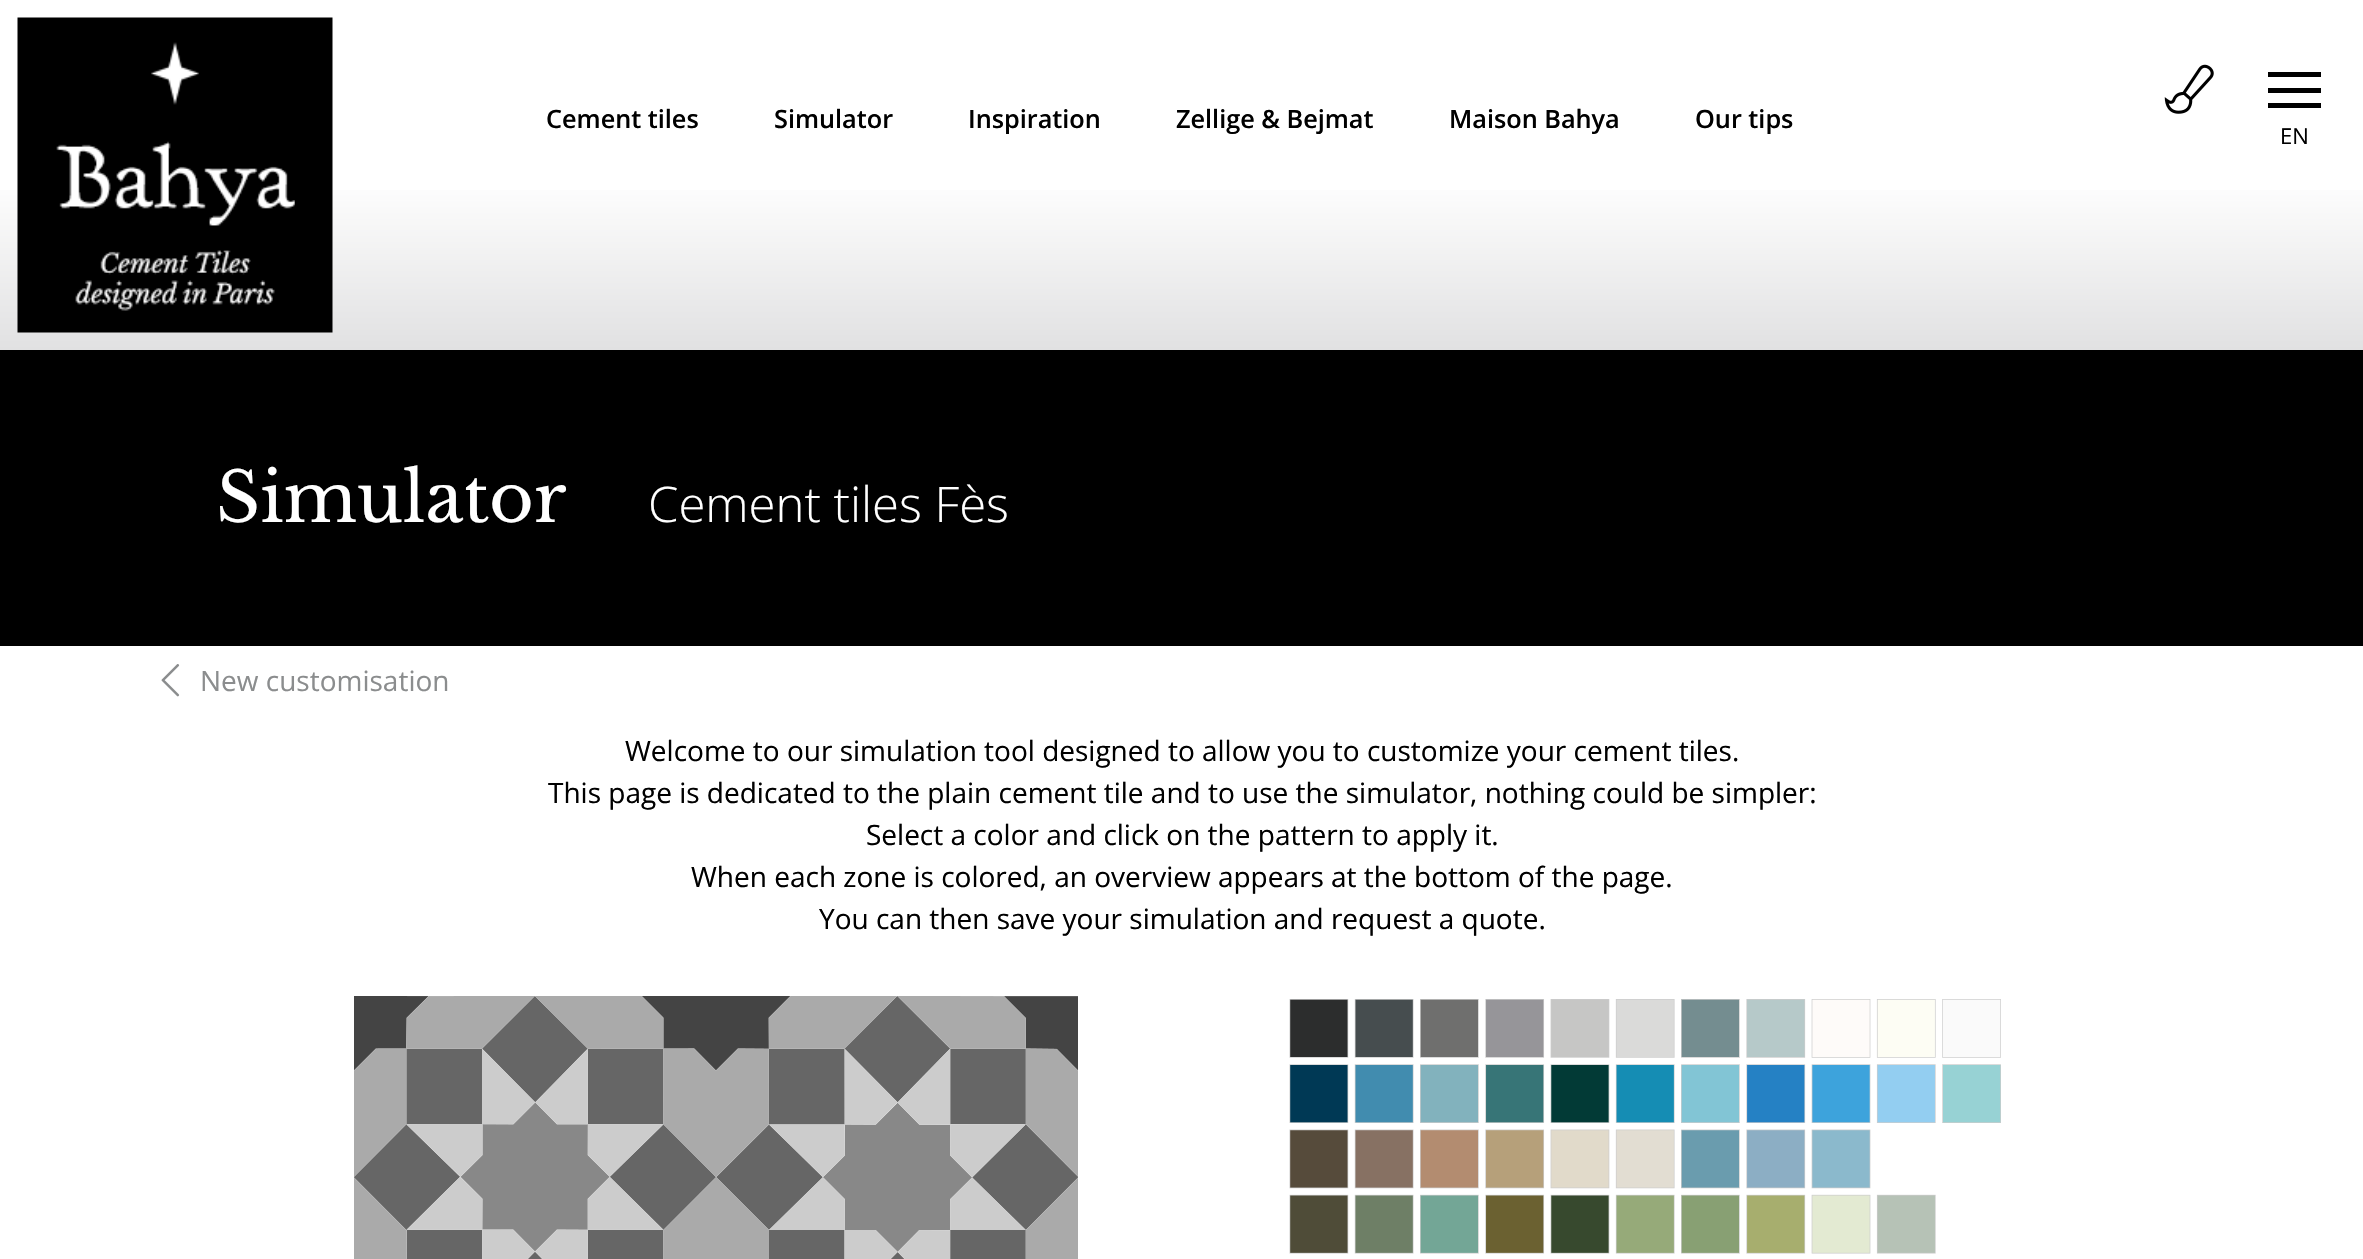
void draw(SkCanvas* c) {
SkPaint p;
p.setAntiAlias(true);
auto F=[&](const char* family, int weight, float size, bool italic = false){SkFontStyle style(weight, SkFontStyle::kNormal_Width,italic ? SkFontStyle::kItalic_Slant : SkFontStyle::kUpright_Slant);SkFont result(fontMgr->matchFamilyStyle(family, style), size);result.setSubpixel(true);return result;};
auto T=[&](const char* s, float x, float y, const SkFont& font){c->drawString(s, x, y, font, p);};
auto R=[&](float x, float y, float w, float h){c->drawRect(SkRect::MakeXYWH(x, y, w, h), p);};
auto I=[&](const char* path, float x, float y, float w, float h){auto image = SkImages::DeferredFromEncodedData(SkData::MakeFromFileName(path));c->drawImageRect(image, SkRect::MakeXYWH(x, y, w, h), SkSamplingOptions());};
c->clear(0xffffffff);
auto f1 = F("Open Sans",600,25.25);
p.setColor(0xff000000);
T("Cement tiles",546,128,f1);
T("Simulator",774,128,f1);
T("Inspiration",968,128,f1);
T("Zellige & Bejmat",1176,128,f1);
T("Maison Bahya",1449,128,f1);
T("Our tips",1695,128,f1);
{
const SkColor colors[] = {0xffffffff,0xffe1e1e2};
const float stops[] = {0,1};
const SkPoint ends[] = {{1182,175}, {1182,350}};
p.setShader(SkGradientShader::MakeLinear(ends, colors, stops, 2, SkTileMode::kClamp));
p.setAlpha(255);
}
R(0,190,2363,160);
I("1.png",17,17,316,316);
I("2.png",2164,64,50,50);
p.setShader(nullptr);
p.setColor(0xff000000);
R(2268,72,53,5);
R(2268,88,53,5);
R(2268,103,53,5);
auto f2 = F("Open Sans",400,22);
T("EN",2280,144,f2);
R(0,350,2363,296);
auto f3 = F("Libre Baskerville",400,68.5);
p.setColor(0xffffffff);
T("Simulator",216,522,f3);
auto f4 = F("Open Sans",300,49);
T("Cement tiles Fès",648,522,f4);
I("3.png",161,664,19,33);
auto f5 = F("Open Sans",400,28);
p.setColor(0xff8b8d8e);
T("New customisation",200,691,f5);
p.setColor(0xff000000);
T("Welcome to our simulation tool designed to allow you to customize your cement tiles.",625,761,f5);
T("This page is dedicated to the plain cement tile and to use the simulator, nothing could be simpler:",548,803,f5);
T("Select a color and click on the pattern to apply it.",866,845,f5);
T("When each zone is colored, an overview appears at the bottom of the page.",691,887,f5);
T("You can then save your simulation and request a quote.",819,929,f5);
I("4.png",354,996,724,263);
I("5.png",1289,999,712,255);
}
